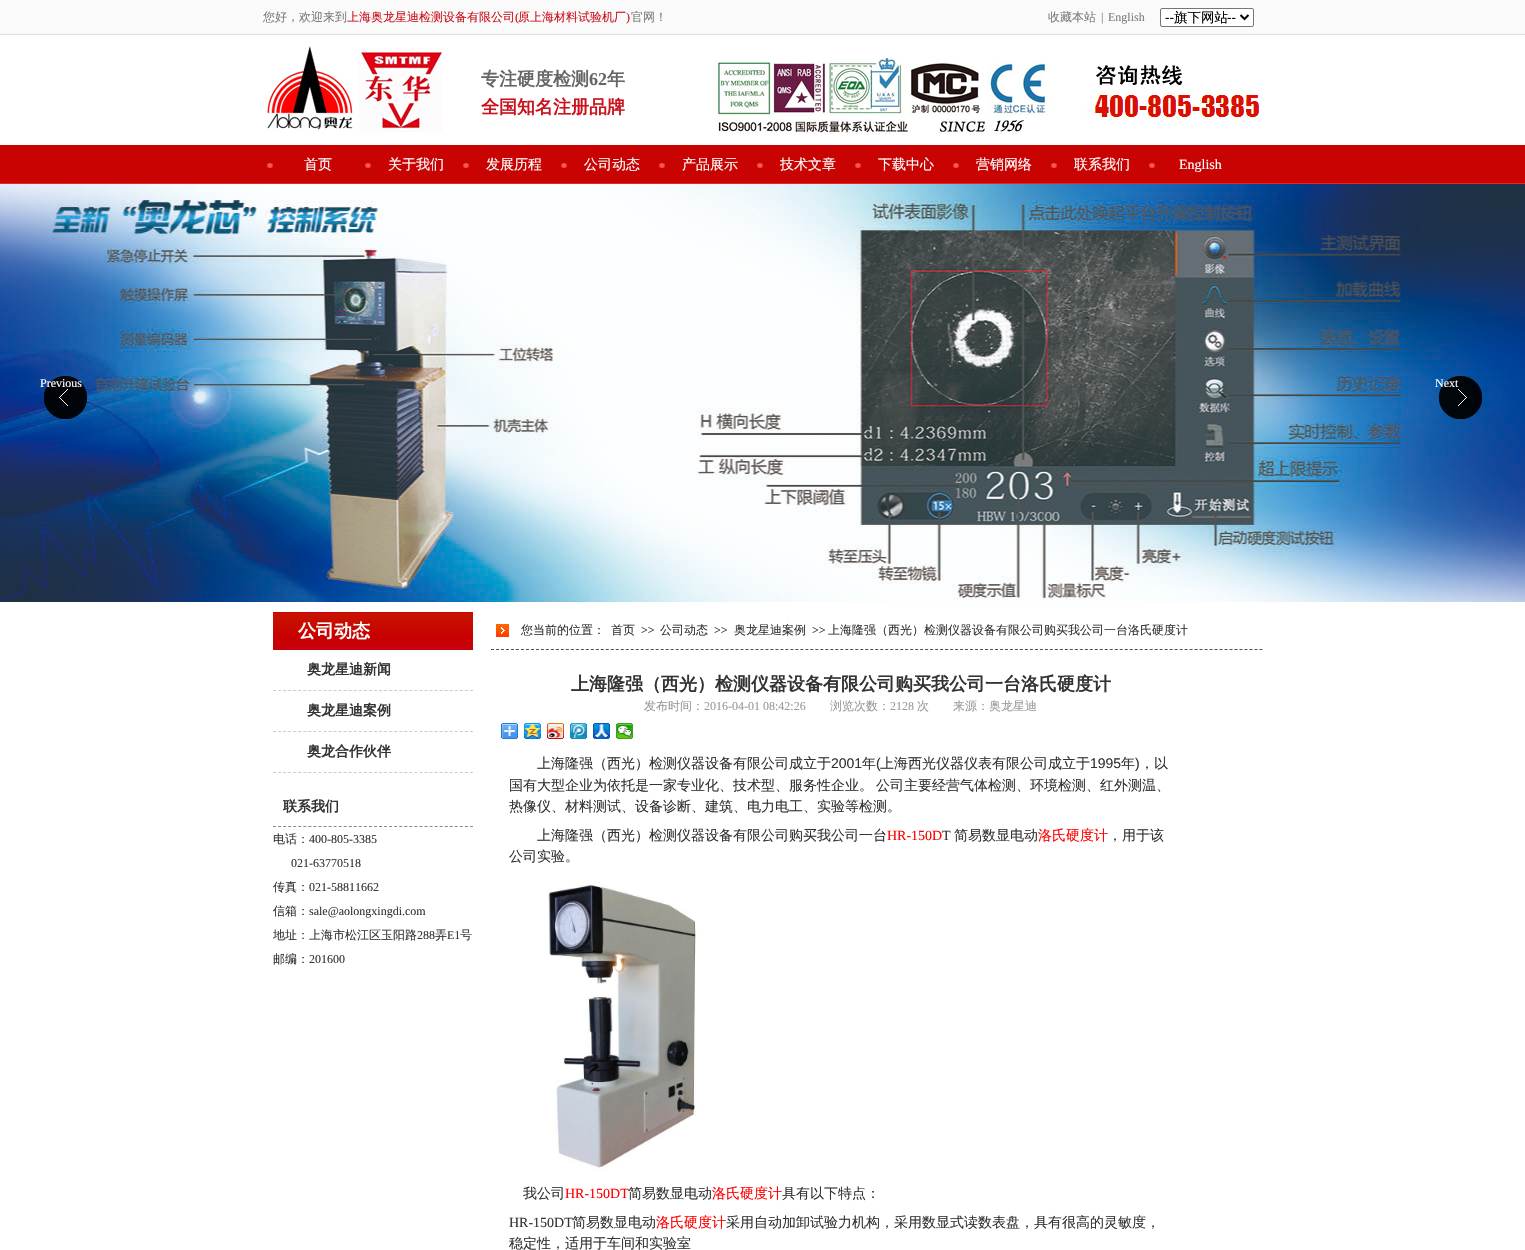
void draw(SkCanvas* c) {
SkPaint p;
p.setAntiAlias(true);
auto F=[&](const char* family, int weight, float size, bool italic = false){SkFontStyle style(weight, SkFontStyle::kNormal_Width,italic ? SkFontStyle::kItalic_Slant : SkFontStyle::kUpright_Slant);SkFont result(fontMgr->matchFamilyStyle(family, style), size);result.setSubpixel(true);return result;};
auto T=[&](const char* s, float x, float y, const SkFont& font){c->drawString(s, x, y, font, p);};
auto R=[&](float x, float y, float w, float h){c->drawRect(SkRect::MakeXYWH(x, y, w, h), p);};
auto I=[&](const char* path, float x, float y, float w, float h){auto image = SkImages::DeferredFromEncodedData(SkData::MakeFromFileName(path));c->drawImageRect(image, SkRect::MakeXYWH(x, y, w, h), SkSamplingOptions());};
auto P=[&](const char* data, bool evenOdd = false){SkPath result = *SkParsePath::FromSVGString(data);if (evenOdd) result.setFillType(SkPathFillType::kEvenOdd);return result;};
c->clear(0xffffffff);
p.setColor(0xfffafafa);
R(0,0,1525,34);
p.setColor(0xffdfdfdf);
R(0,34,1525,1);
auto f1 = F("WenQuanYi Zen Hei",500,12);
p.setColor(0xff7c7c7c);
T("您好，欢迎来到",263,21,f1);
p.setColor(0xffcb131d);
T("上海奥龙星迪检测设备有限公司",347,21,f1);
auto f2 = F("Liberation Serif",400,12);
T("(",515,21,f2);
T("原上海材料试验机厂",518,21,f1);
T(")",626,21,f2);
p.setColor(0xff7c7c7c);
T("官网！",631,21,f1);
T("收藏本站",1048,21,f1);
T("|",1101,21,f2);
T("English",1108,21,f2);
p.setColor(0xffffffff);
c->drawRoundRect(SkRect::MakeXYWH(1160.5,8.5,93,18),1.5,1.5,p);
p.setStroke(true);
p.setStrokeWidth(1);
p.setColor(0xff767676);
c->drawRoundRect(SkRect::MakeXYWH(1160.5,8.5,93,18),1.5,1.5,p);
p.setStrokeWidth(2);
p.setColor(0xff000000);
c->drawPath(P("M1240.5 15l4 4l4-4"),p);
auto f3 = F("Liberation Sans",400,13.5);
p.setStroke(false);
T("--",1165,22,f3);
auto f4 = F("WenQuanYi Zen Hei",500,13.5);
T("旗下网站",1174,22,f4);
T("--",1227,22,f3);
I("1.png",266,46,177,86);
auto f5 = F("WenQuanYi Zen Hei",700,18);
p.setColor(0xff666666);
T("专注硬度检测",481,85,f5);
auto f6 = F("Liberation Serif",700,18);
T("62",589,85,f6);
T("年",607,85,f5);
p.setColor(0xffcb131d);
T("全国知名注册品牌",481,113,f5);
I("2.png",716,57,544,78);
I("3.png",0,145,1525,39);
I("4.png",267,163,6,19);
auto f7 = F("WenQuanYi Zen Hei",500,14);
p.setColor(0xffffffff);
T("首页",304,169,f7);
I("5.png",365,163,6,19);
T("关于我们",388,169,f7);
I("5.png",463,163,6,19);
T("发展历程",486,169,f7);
I("6.png",561,163,7,19);
T("公司动态",584,169,f7);
I("4.png",659,163,6,19);
T("产品展示",682,169,f7);
I("5.png",757,163,6,19);
T("技术文章",780,169,f7);
I("5.png",855,163,6,19);
T("下载中心",878,169,f7);
I("7.png",953,163,7,19);
T("营销网络",976,169,f7);
I("5.png",1051,163,6,19);
T("联系我们",1074,169,f7);
I("5.png",1149,163,6,19);
auto f8 = F("Liberation Serif",400,14);
T("English",1179,169,f8);
I("8.png",0,184,1525,418);
I("9.png",44,376,43,43);
I("10.png",1439,376,43,43);
I("11.png",44,376,43,43);
T("Previous",40,387,f2);
I("12.png",1439,376,43,43);
T("Next",1435,387,f2);
I("13.png",273,612,200,38);
T("公司动态",298,637,f5);
p.setStroke(true);
p.setStrokeWidth(1);
p.setColor(0xffcccccc);
p.setPathEffect(SkDashPathEffect::Make({{3,2.05f}}, 0));
c->drawPath(P("M273 690.5h200"),p);
p.setPathEffect(nullptr);
auto f9 = F("WenQuanYi Zen Hei",700,14);
p.setStroke(false);
p.setColor(0xff333333);
T("奥龙星迪新闻",307,674,f9);
p.setStroke(true);
p.setColor(0xffcccccc);
p.setPathEffect(SkDashPathEffect::Make({{3,2.05f}}, 0));
c->drawPath(P("M273 731.5h200"),p);
p.setPathEffect(nullptr);
p.setStroke(false);
p.setColor(0xff333333);
T("奥龙星迪案例",307,715,f9);
p.setStroke(true);
p.setColor(0xffcccccc);
p.setPathEffect(SkDashPathEffect::Make({{3,2.05f}}, 0));
c->drawPath(P("M273 772.5h200"),p);
p.setPathEffect(nullptr);
p.setStroke(false);
p.setColor(0xff333333);
T("奥龙合作伙伴",307,756,f9);
p.setStroke(true);
p.setColor(0xff888888);
p.setPathEffect(SkDashPathEffect::Make({{3,2.05f}}, 0));
c->drawPath(P("M273 826.5h200"),p);
p.setPathEffect(nullptr);
p.setStroke(false);
p.setColor(0xff333333);
T("联系我们",283,811,f9);
T("电话：",273,843,f1);
T("400-805-3385",309,843,f2);
T("021-63770518",291,867,f2);
T("传真：",273,891,f1);
T("021-58811662",309,891,f2);
T("信箱：",273,915,f1);
T("sale@aolongxingdi.com",309,915,f2);
T("地址：上海市松江区玉阳路",273,939,f1);
T("288",417,939,f2);
T("弄",435,939,f1);
T("E1",447,939,f2);
T("号",460,939,f1);
T("邮编：",273,963,f1);
T("201600",309,963,f2);
I("14.png",496,624,13,13);
p.setStroke(true);
p.setColor(0xff42535a);
p.setPathEffect(SkDashPathEffect::Make({{3,1.99f}}, 0));
c->drawPath(P("M491 649.5h772"),p);
p.setPathEffect(nullptr);
p.setStroke(false);
p.setColor(0xff333333);
T("您当前的位置：",521,634,f1);
T("首页",611,634,f1);
T(">>",641,634,f2);
T("公司动态",660,634,f1);
T(">>",714,634,f2);
T("奥龙星迪案例",734,634,f1);
T(">>",812,634,f2);
T("上海隆强（西光）检测仪器设备有限公司购买我公司一台洛氏硬度计",828,634,f1);
T("上海隆强（西光）检测仪器设备有限公司购买我公司一台洛氏硬度计",571,690,f5);
p.setColor(0xff999999);
T("发布时间：",644,710,f1);
T("2016-04-01 08:42:26",704,710,f2);
T("浏览次数：",830,710,f1);
T("2128",890,710,f2);
T("次　　来源：奥龙星迪",917,710,f1);
I("15.png",501,723,17,16);
I("16.png",524,723,17,16);
I("17.png",547,723,17,16);
I("18.png",570,723,17,16);
I("19.png",593,723,17,16);
I("20.png",616,723,17,16);
p.setColor(0xff333333);
T("上海隆强（西光）检测仪器设备有限公司成立于",537,768,f7);
auto f10 = F("Liberation Sans",400,14);
T("2001",831,768,f10);
T("年",862,768,f7);
T("(",876,768,f10);
T("上海西光仪器仪表有限公司成立于",880,768,f7);
T("1995",1090,768,f10);
T("年",1121,768,f7);
T(")",1135,768,f10);
T("，以",1140,768,f7);
T("国有大型企业为依托是一家专业化、技术型、服务性企业。",509,790,f7);
T("公司主要经营气体检测、环境检测、红外测温、",876,790,f7);
T("热像仪、材料测试、设备诊断、建筑、电力电工、实验等检测。",509,811,f7);
T("上海隆强（西光）检测仪器设备有限公司购买我公司一台",537,840,f7);
p.setColor(0xffff0000);
T("HR-150D",887,840,f8);
p.setColor(0xff333333);
T("T",942,840,f8);
T("简易数显电动",954,840,f7);
p.setColor(0xffff0000);
T("洛氏硬度计",1038,840,f7);
p.setColor(0xff333333);
T("，用于该",1108,840,f7);
T("公司实验。",509,861,f7);
I("21.png",548,884,149,286);
T("我公司",523,1198,f7);
p.setColor(0xffff0000);
T("HR-150DT",565,1198,f8);
p.setColor(0xff333333);
T("简易数显电动",628,1198,f7);
p.setColor(0xffff0000);
T("洛氏硬度计",712,1198,f7);
p.setColor(0xff333333);
T("具有以下特点：",782,1198,f7);
T("HR-150DT",509,1227,f8);
T("简易数显电动",572,1227,f7);
p.setColor(0xffff0000);
T("洛氏硬度计",656,1227,f7);
p.setColor(0xff333333);
T("采用自动加卸试验力机构，采用数显式读数表盘，具有很高的灵敏度，",726,1227,f7);
T("稳定性，适用于车间和实验室",509,1248,f7);
}
